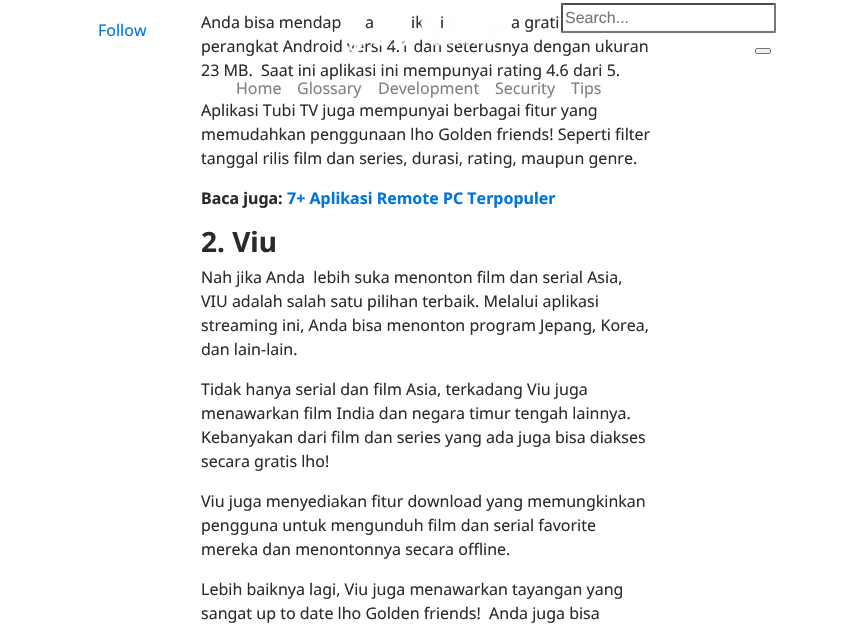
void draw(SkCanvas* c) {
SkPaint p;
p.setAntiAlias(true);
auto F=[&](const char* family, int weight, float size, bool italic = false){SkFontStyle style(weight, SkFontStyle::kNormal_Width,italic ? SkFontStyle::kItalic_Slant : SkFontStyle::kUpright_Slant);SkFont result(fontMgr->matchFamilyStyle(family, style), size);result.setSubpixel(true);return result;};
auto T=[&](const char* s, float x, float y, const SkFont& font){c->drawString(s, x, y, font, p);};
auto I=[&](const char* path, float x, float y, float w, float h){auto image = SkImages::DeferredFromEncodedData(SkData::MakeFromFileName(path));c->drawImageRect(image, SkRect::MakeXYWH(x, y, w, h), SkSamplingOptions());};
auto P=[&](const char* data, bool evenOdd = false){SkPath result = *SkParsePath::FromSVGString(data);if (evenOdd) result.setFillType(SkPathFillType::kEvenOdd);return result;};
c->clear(0xffffffff);
auto f1 = F("Noto Sans",400,16);
p.setColor(0xff0275d8);
T("Follow",98,36,f1);
p.setColor(0xff292b2c);
T("a",365,28,f1);
T("ik",411,28,f1);
T("i",440,28,f1);
T("perangkat Android versi 4.1 dan seterusnya dengan ukuran",201,52,f1);
I("1.png",346,16,162,36);
p.setColor(0xff4f4f4f);
c->drawPath(P("M561 3h215l-2 2h-211z"),p);
p.setColor(0xff767676);
c->drawPath(P("M776 3v30l-2-2v-26z"),p);
c->drawPath(P("M776 33h-215l2-2h211z"),p);
p.setColor(0xff4f4f4f);
c->drawPath(P("M561 33v-30l2 2v26z"),p);
auto f2 = F("Liberation Sans",400,16);
p.setColor(0xff757575);
T("Search...",565,23,f2);
p.setColor(0xffefefef);
c->drawRoundRect(SkRect::MakeXYWH(755.5,48.5,15,5),1.5,1.5,p);
p.setStroke(true);
p.setStrokeWidth(1);
p.setColor(0xff767676);
c->drawRoundRect(SkRect::MakeXYWH(755.5,48.5,15,5),1.5,1.5,p);
p.setStroke(false);
p.setColor(0xff808080);
T("Home",236,94,f1);
T("Glossary",297,94,f1);
T("Development",378,94,f1);
T("Security",495,94,f1);
T("Tips",571,94,f1);
p.setColor(0xff292b2c);
T("Anda bisa mendap",201,28,f1);
T("a grati",511,28,f1);
T("23 MB.  Saat ini aplikasi ini mempunyai rating 4.6 dari 5.",201,76,f1);
T("Aplikasi Tubi TV juga mempunyai berbagai fitur yang",201,116,f1);
T("memudahkan penggunaan lho Golden friends! Seperti filter",201,140,f1);
T("tanggal rilis film dan series, durasi, rating, maupun genre.",201,164,f1);
auto f3 = F("Noto Sans",700,16);
T("Baca juga:",201,204,f3);
p.setColor(0xff0275d8);
T("7+ Aplikasi Remote PC Terpopuler",287,204,f3);
auto f4 = F("Noto Sans",700,28);
p.setColor(0xff292b2c);
T("2. Viu",201,252,f4);
T("Nah jika Anda  lebih suka menonton film dan serial Asia,",201,283,f1);
T("VIU adalah salah satu pilihan terbaik. Melalui aplikasi",201,307,f1);
T("streaming ini, Anda bisa menonton program Jepang, Korea,",201,331,f1);
T("dan lain-lain.",201,355,f1);
T("Tidak hanya serial dan film Asia, terkadang Viu juga",201,395,f1);
T("menawarkan film India dan negara timur tengah lainnya.",201,419,f1);
T("Kebanyakan dari film dan series yang ada juga bisa diakses",201,443,f1);
T("secara gratis lho!",201,467,f1);
T("Viu juga menyediakan fitur download yang memungkinkan",201,507,f1);
T("pengguna untuk mengunduh film dan serial favorite",201,531,f1);
T("mereka dan menontonnya secara offline.",201,555,f1);
T("Lebih baiknya lagi, Viu juga menawarkan tayangan yang",201,595,f1);
T("sangat up to date lho Golden friends!  Anda juga bisa",201,619,f1);
}
